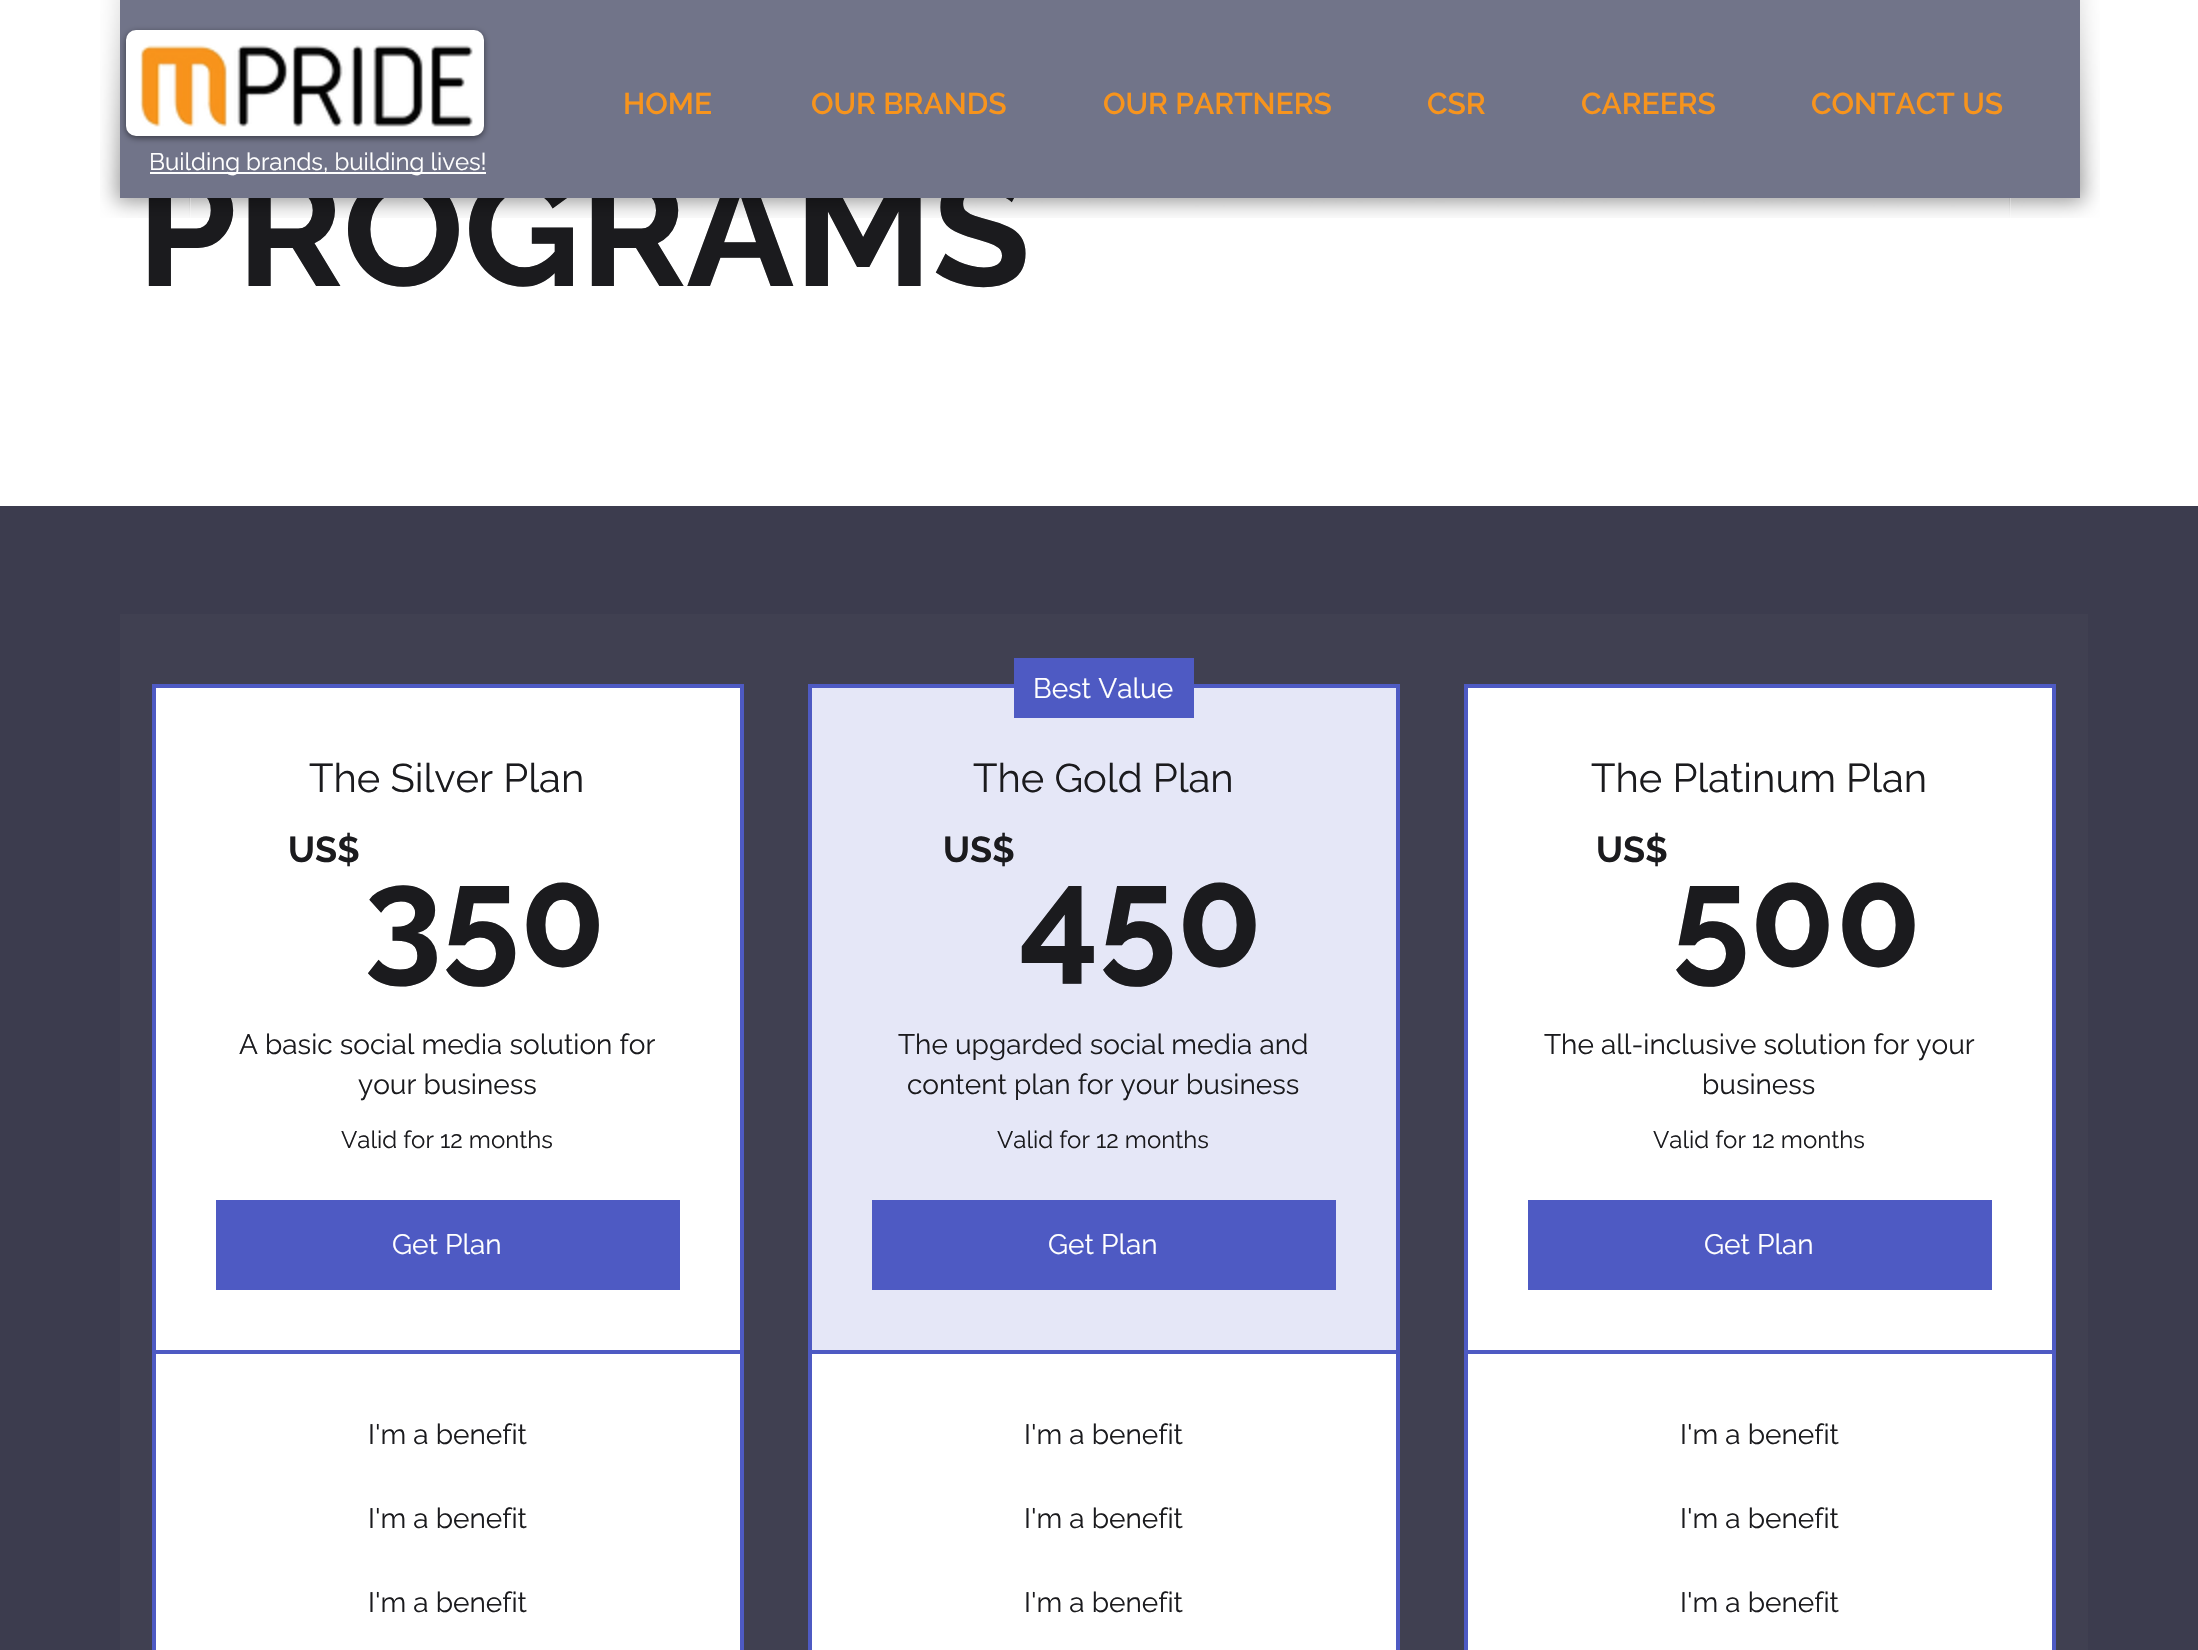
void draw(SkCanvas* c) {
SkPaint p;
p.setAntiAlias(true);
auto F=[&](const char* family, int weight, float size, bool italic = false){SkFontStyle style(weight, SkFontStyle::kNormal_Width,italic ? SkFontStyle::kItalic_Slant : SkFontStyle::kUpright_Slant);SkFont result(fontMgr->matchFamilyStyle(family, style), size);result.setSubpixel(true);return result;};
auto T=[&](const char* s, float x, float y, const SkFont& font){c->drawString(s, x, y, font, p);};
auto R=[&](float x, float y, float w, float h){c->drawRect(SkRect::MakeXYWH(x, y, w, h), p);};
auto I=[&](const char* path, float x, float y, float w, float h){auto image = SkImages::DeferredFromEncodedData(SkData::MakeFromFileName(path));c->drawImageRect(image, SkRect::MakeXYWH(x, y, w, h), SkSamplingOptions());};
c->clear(0xff3c3c4e);
p.setColor(0xffffffff);
R(0,0,2198,506);
auto f1 = F("Raleway",700,160);
p.setColor(0xff1b1b1e);
T("PROGRAMS",137,286,f1);
I("1.png",100,0,90,218);
I("2.png",189,198,1821,20);
I("3.png",2009,0,91,218);
p.setColor(0xff717489);
R(120,0,1960,198);
auto f2 = F("Raleway",600,30);
p.setColor(0xfff7941d);
T("HOME",623,114,f2);
T("OUR BRANDS",811,114,f2);
T("OUR PARTNERS",1103,114,f2);
T("CSR",1427,114,f2);
T("CAREERS",1581,114,f2);
T("CONTACT US",1811,114,f2);
p.setColor(0x80000000);
p.setMaskFilter(SkMaskFilter::MakeBlur(kNormal_SkBlurStyle, 3));
c->drawRoundRect(SkRect::MakeXYWH(126,32,358,106),10,10,p);
p.setMaskFilter(nullptr);
p.setColor(0xffffffff);
c->drawRoundRect(SkRect::MakeXYWH(128,32,354,102),8,8,p);
p.setStroke(true);
p.setStrokeWidth(4);
c->drawRoundRect(SkRect::MakeXYWH(128,32,354,102),8,8,p);
I("4.png",140,45,333,82);
p.setStroke(false);
R(150,172,336,2);
auto f3 = F("Raleway",400,24);
T("Building brands, building lives!",149,170,f3);
p.setColor(0xff404051);
R(120,614,1968,1036);
p.setStroke(true);
p.setColor(0xff4e5ac3);
c->drawRect(SkRect::MakeXYWH(154,686,588,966),p);
p.setStroke(false);
p.setColor(0xffffffff);
R(156,688,584,662);
auto f4 = F("Raleway",400,40);
p.setColor(0xff1b1b1e);
T("The Silver Plan",309,792,f4);
auto f5 = F("Raleway",700,36);
T("US$",288,862,f5);
auto f6 = F("Raleway",700,140);
T("350",364,966,f6);
auto f7 = F("Raleway",400,28);
T("A basic social media solution for",239,1054,f7);
T("your business",358,1094,f7);
T("Valid for 12 months",341,1148,f3);
p.setColor(0xff4e5ac3);
R(216,1200,464,90);
p.setColor(0xffffffff);
T("Get Plan",392,1254,f7);
R(156,1354,584,296);
p.setColor(0xff4e5ac3);
R(156,1350,584,4);
p.setColor(0xff1b1b1e);
T("I'm a benefit",368,1444,f7);
T("I'm a benefit",368,1528,f7);
T("I'm a benefit",368,1612,f7);
p.setStroke(true);
p.setColor(0xff4e5ac3);
c->drawRect(SkRect::MakeXYWH(810,686,588,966),p);
p.setStroke(false);
p.setColor(0xffe5e7f7);
R(812,688,584,662);
p.setColor(0xff4e5ac3);
R(1014,658,180,60);
p.setColor(0xffffffff);
T("Best Value",1033,698,f7);
p.setColor(0xff1b1b1e);
T("The Gold Plan",973,792,f4);
T("US$",943,862,f5);
T("450",1019,966,f6);
T("The upgarded social media and",898,1054,f7);
T("content plan for your business",907,1094,f7);
T("Valid for 12 months",997,1148,f3);
p.setColor(0xff4e5ac3);
R(872,1200,464,90);
p.setColor(0xffffffff);
T("Get Plan",1048,1254,f7);
R(812,1354,584,296);
p.setColor(0xff4e5ac3);
R(812,1350,584,4);
p.setColor(0xff1b1b1e);
T("I'm a benefit",1024,1444,f7);
T("I'm a benefit",1024,1528,f7);
T("I'm a benefit",1024,1612,f7);
p.setStroke(true);
p.setColor(0xff4e5ac3);
c->drawRect(SkRect::MakeXYWH(1466,686,588,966),p);
p.setStroke(false);
p.setColor(0xffffffff);
R(1468,688,584,662);
p.setColor(0xff1b1b1e);
T("The Platinum Plan",1591,792,f4);
T("US$",1596,862,f5);
T("500",1672,966,f6);
T("The all-inclusive solution for your",1544,1054,f7);
T("business",1702,1094,f7);
T("Valid for 12 months",1653,1148,f3);
p.setColor(0xff4e5ac3);
R(1528,1200,464,90);
p.setColor(0xffffffff);
T("Get Plan",1704,1254,f7);
R(1468,1354,584,296);
p.setColor(0xff4e5ac3);
R(1468,1350,584,4);
p.setColor(0xff1b1b1e);
T("I'm a benefit",1680,1444,f7);
T("I'm a benefit",1680,1528,f7);
T("I'm a benefit",1680,1612,f7);
}
